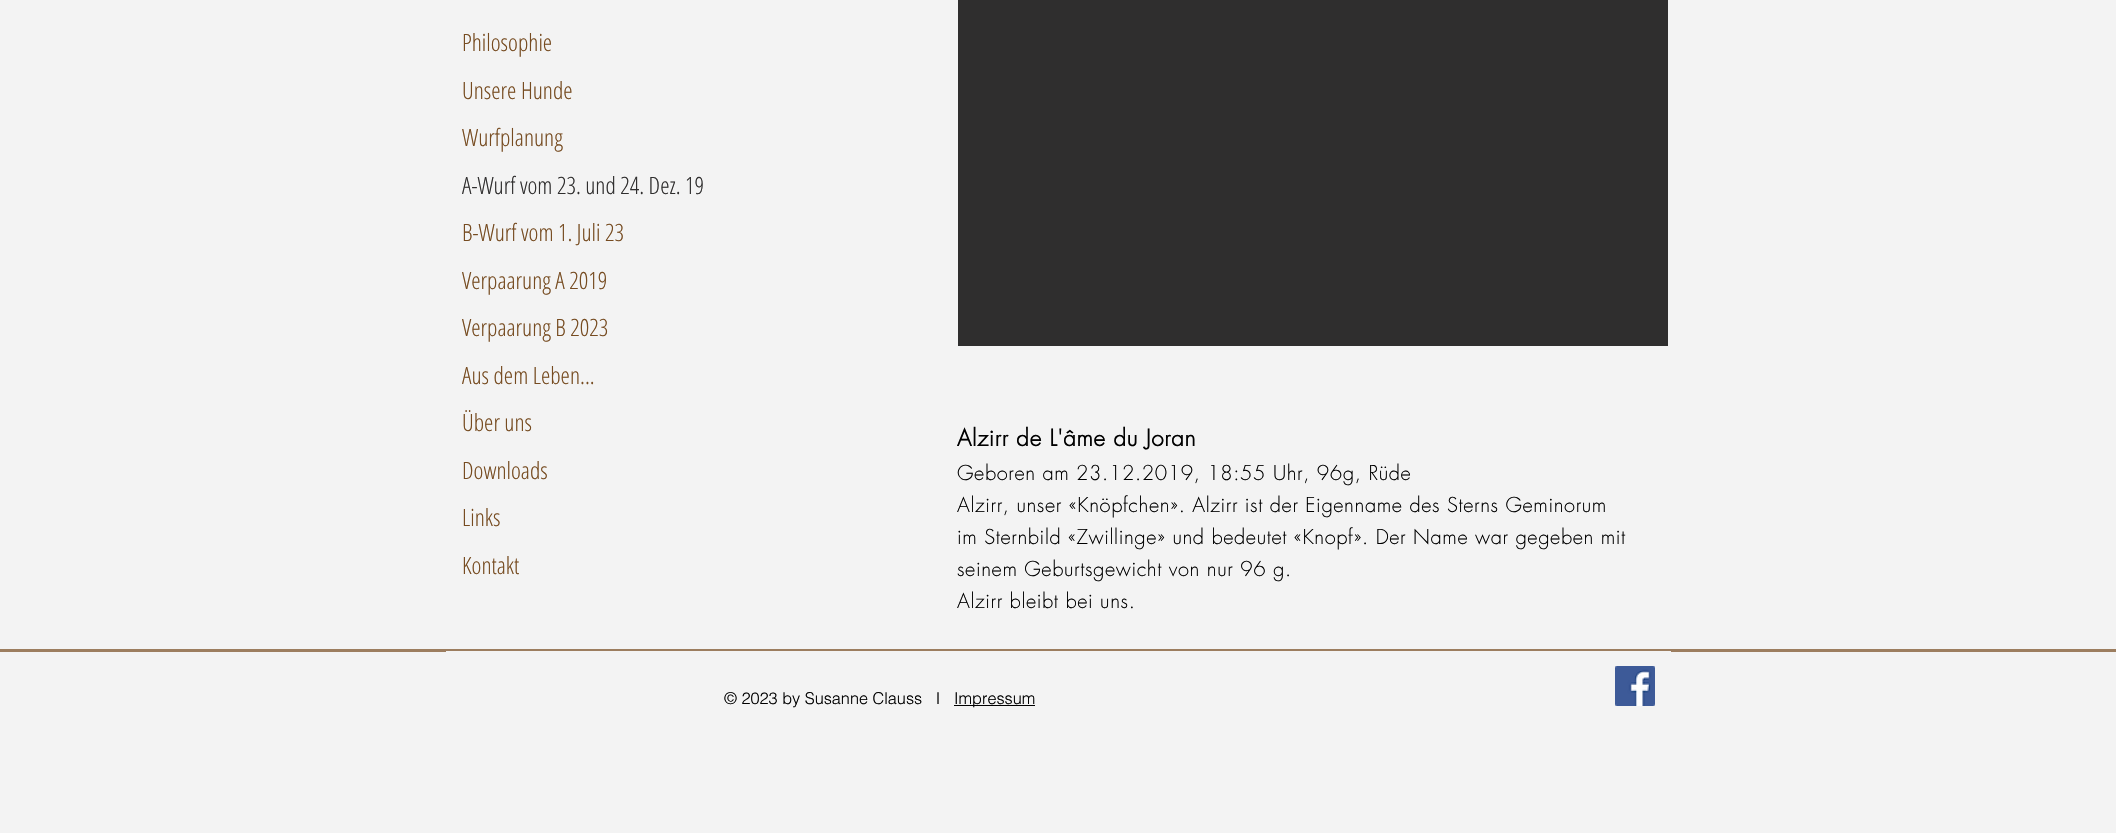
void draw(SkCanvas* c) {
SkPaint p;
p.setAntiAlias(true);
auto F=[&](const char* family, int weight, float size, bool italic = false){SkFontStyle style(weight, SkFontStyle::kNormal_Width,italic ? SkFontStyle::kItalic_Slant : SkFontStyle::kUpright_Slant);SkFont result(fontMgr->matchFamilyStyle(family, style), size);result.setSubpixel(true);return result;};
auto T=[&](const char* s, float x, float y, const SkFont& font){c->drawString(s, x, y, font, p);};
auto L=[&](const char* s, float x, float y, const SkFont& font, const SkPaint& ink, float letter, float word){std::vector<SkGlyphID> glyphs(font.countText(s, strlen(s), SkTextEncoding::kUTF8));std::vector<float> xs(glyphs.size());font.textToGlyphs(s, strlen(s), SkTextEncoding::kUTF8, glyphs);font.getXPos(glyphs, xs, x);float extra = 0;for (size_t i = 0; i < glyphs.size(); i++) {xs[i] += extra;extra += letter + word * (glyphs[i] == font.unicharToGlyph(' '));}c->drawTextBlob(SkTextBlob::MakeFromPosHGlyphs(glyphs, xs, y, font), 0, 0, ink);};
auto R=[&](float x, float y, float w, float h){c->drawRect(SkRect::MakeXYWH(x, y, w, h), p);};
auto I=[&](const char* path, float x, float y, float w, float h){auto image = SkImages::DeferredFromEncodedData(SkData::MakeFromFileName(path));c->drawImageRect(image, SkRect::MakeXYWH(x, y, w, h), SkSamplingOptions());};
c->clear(0xfff3f3f3);
auto f1 = F("Open Sans Condensed",300,23.75);
p.setColor(0xff764b20);
T("Philosophie",462,51,f1);
T("Unsere Hunde",462,99,f1);
T("Wurfplanung",462,146,f1);
p.setColor(0xff2f2e2e);
T("A-Wurf vom 23. und 24. Dez. 19",462,194,f1);
p.setColor(0xff764b20);
T("B-Wurf vom 1. Juli 23",462,241,f1);
T("Verpaarung A 2019",462,289,f1);
T("Verpaarung B 2023",462,336,f1);
T("Aus dem Leben...",462,384,f1);
T("Über uns",462,431,f1);
T("Downloads",462,479,f1);
T("Links",462,526,f1);
T("Kontakt",462,574,f1);
p.setColor(0xff2f2e2e);
R(958,0,710,346);
auto f2 = F("futura",700,22.5);
p.setColor(0xff000000);
L("Alzirr de L'âme du Joran",957,446,f2,p,.7,0);
auto f3 = F("futura",300,20);
L("Geboren am 23.12.2019, 18:55 Uhr, 96g, Rüde",957,480,f3,p,.6,0);
L("Alzirr, unser «Knöpfchen». Alzirr ist der Eigenname des Sterns Geminorum",957,512,f3,p,.6,0);
L("im Sternbild «Zwillinge» und bedeutet «Knopf». Der Name war gegeben mit",957,544,f3,p,.6,0);
L("seinem Geburtsgewicht von nur 96 g.",957,576,f3,p,.6,0);
L("Alzirr bleibt bei uns.",957,608,f3,p,.6,0);
p.setColor(0xff9c7d5f);
R(0,649,2116,3);
p.setColor(0xfff3f3f3);
R(446,651,1225,1);
auto f4 = F("helvetica",300,16.25);
p.setColor(0xff000000);
T("© 2023 by Susanne Clauss   I",724,704,f4);
R(954,705,81,1);
T("Impressum",954,704,f4);
I("1.png",1615,666,40,40);
}
